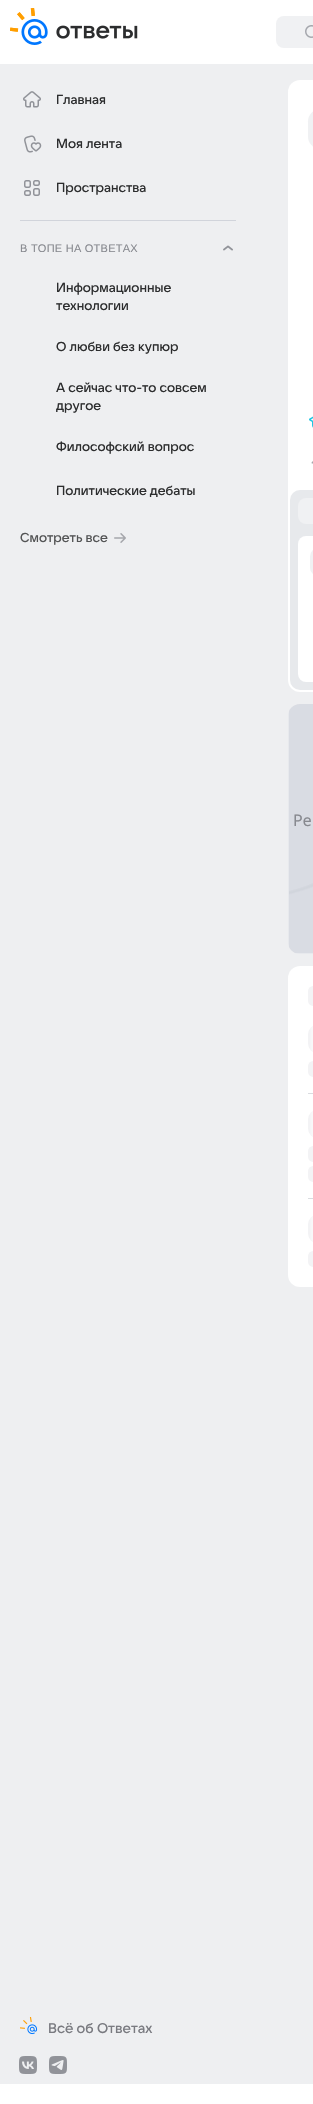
void draw(SkCanvas* c) {
SkPaint p;
p.setAntiAlias(true);
auto F=[&](const char* family, int weight, float size, bool italic = false){SkFontStyle style(weight, SkFontStyle::kNormal_Width,italic ? SkFontStyle::kItalic_Slant : SkFontStyle::kUpright_Slant);SkFont result(fontMgr->matchFamilyStyle(family, style), size);result.setSubpixel(true);return result;};
auto T=[&](const char* s, float x, float y, const SkFont& font){c->drawString(s, x, y, font, p);};
auto L=[&](const char* s, float x, float y, const SkFont& font, const SkPaint& ink, float letter, float word){std::vector<SkGlyphID> glyphs(font.countText(s, strlen(s), SkTextEncoding::kUTF8));std::vector<float> xs(glyphs.size());font.textToGlyphs(s, strlen(s), SkTextEncoding::kUTF8, glyphs);font.getXPos(glyphs, xs, x);float extra = 0;for (size_t i = 0; i < glyphs.size(); i++) {xs[i] += extra;extra += letter + word * (glyphs[i] == font.unicharToGlyph(' '));}c->drawTextBlob(SkTextBlob::MakeFromPosHGlyphs(glyphs, xs, y, font), 0, 0, ink);};
auto R=[&](float x, float y, float w, float h){c->drawRect(SkRect::MakeXYWH(x, y, w, h), p);};
auto Q=[&](float x, float y, float w, float h, float radius){c->drawRoundRect(SkRect::MakeXYWH(x, y, w, h), radius, radius, p);};
auto I=[&](const char* path, float x, float y, float w, float h){auto image = SkImages::DeferredFromEncodedData(SkData::MakeFromFileName(path));c->drawImageRect(image, SkRect::MakeXYWH(x, y, w, h), SkSamplingOptions());};
c->clear(0xffffffff);
p.setColor(0xffeeeff1);
R(0,64,313,2020);
I("1.png",10,8,128,37);
p.setColor(0xfff0f1f3);
Q(276,16,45,32,8);
I("2.png",305,25,8,13);
I("3.png",23,91,18,17);
auto f1 = F("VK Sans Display",500,13);
p.setColor(0xff2c2d2e);
T("Главная",56,104,f1);
I("4.png",24,135,18,18);
T("Моя лента",56,148,f1);
I("5.png",24,180,16,16);
T("Пространства",56,192,f1);
p.setColor(0xffd1d4db);
R(20,220,216,1);
auto f2 = F("Liberation Sans",400,11);
p.setColor(0xff87898f);
L("В ТОПЕ НА ОТВЕТАХ",20,252,f2,p,.25,0);
I("6.png",223,245,10,6);
p.setColor(0xff2c2d2e);
T("Информационные",56,292,f1);
T("технологии",56,310,f1);
T("О любви без купюр",56,351,f1);
T("А сейчас что-то совсем",56,392,f1);
T("другое",56,410,f1);
T("Философский вопрос",56,451,f1);
T("Политические дебаты",56,495,f1);
p.setColor(0xff535455);
T("Смотреть все",20,542,f1);
I("7.png",114,533,12,10);
I("8.png",20,2017,18,18);
auto f3 = F("VK Sans Display",500,14);
p.setColor(0xff797a80);
T("Всё об Ответах",48,2033,f3);
I("9.png",19,2056,18,18);
I("10.png",49,2056,18,18);
p.setColor(0xffffffff);
Q(288,80,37,612,12);
p.setColor(0xfff0f1f3);
Q(308,109,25,40,20);
I("11.png",309,416,4,12);
I("12.png",311,461,2,3);
p.setColor(0xffe7e9ec);
Q(290,490,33,200,10);
p.setColor(0xfff0f1f3);
Q(298,498,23,26,8);
p.setColor(0xffffffff);
Q(298,536,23,146,8);
p.setColor(0xfff0f1f3);
Q(310,548,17,28,14);
p.setColor(0xffe7e9ed);
Q(288,704,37,250,12);
I("13.png",289,704,24,249);
auto f4 = F("Noto Sans",400,16);
p.setColor(0xff87898f);
T("Ре",293,826,f4);
p.setColor(0xffffffff);
Q(288,966,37,321,12);
{
const SkColor colors[] = {0xfff3f3f5,0xffffffff,0xfff3f3f5};
const float stops[] = {.05,.3,.55};
const SkPoint ends[] = {{308,996}, {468,996}};
p.setShader(SkGradientShader::MakeLinear(ends, colors, stops, 3, SkTileMode::kClamp));
p.setAlpha(255);
}
Q(308,986,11,20,6);
p.setShader(nullptr);
p.setColor(0xfff3f3f5);
Q(308,1025,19,28,14);
{
const SkColor colors[] = {0x00ffffff,0xffffffff,0x00ffffff};
const float stops[] = {.05,.3,.55};
const SkPoint ends[] = {{308,1039}, {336,1039}};
p.setShader(SkGradientShader::MakeLinear(ends, colors, stops, 3, SkTileMode::kClamp));
p.setAlpha(255);
}
Q(308,1025,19,28,14);
{
const SkColor colors[] = {0xfff3f3f5,0xffffffff,0xfff3f3f5};
const float stops[] = {.05,.3,.55};
const SkPoint ends[] = {{308,1069}, {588,1069}};
p.setShader(SkGradientShader::MakeLinear(ends, colors, stops, 3, SkTileMode::kClamp));
p.setAlpha(255);
}
Q(308,1061,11,16,6);
p.setShader(nullptr);
p.setColor(0xffdadce0);
R(308,1093,5,1);
p.setColor(0xfff3f3f5);
Q(308,1110,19,28,14);
{
const SkColor colors[] = {0x00ffffff,0xffffffff,0x00ffffff};
const float stops[] = {.05,.3,.55};
const SkPoint ends[] = {{308,1124}, {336,1124}};
p.setShader(SkGradientShader::MakeLinear(ends, colors, stops, 3, SkTileMode::kClamp));
p.setAlpha(255);
}
Q(308,1110,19,28,14);
{
const SkColor colors[] = {0xfff3f3f5,0xffffffff,0xfff3f3f5};
const float stops[] = {.05,.3,.55};
const SkPoint ends[] = {{308,1154}, {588,1154}};
p.setShader(SkGradientShader::MakeLinear(ends, colors, stops, 3, SkTileMode::kClamp));
p.setAlpha(255);
}
Q(308,1146,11,16,6);
{
const SkColor colors[] = {0xfff3f3f5,0xffffffff,0xfff3f3f5};
const float stops[] = {.05,.3,.55};
const SkPoint ends[] = {{308,1174}, {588,1174}};
p.setShader(SkGradientShader::MakeLinear(ends, colors, stops, 3, SkTileMode::kClamp));
p.setAlpha(255);
}
Q(308,1166,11,16,6);
p.setShader(nullptr);
p.setColor(0xffdadce0);
R(308,1198,5,1);
p.setColor(0xfff3f3f5);
Q(308,1215,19,28,14);
{
const SkColor colors[] = {0x00ffffff,0xffffffff,0x00ffffff};
const float stops[] = {.05,.3,.55};
const SkPoint ends[] = {{308,1229}, {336,1229}};
p.setShader(SkGradientShader::MakeLinear(ends, colors, stops, 3, SkTileMode::kClamp));
p.setAlpha(255);
}
Q(308,1215,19,28,14);
{
const SkColor colors[] = {0xfff3f3f5,0xffffffff,0xfff3f3f5};
const float stops[] = {.05,.3,.55};
const SkPoint ends[] = {{308,1259}, {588,1259}};
p.setShader(SkGradientShader::MakeLinear(ends, colors, stops, 3, SkTileMode::kClamp));
p.setAlpha(255);
}
Q(308,1251,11,16,6);
}
